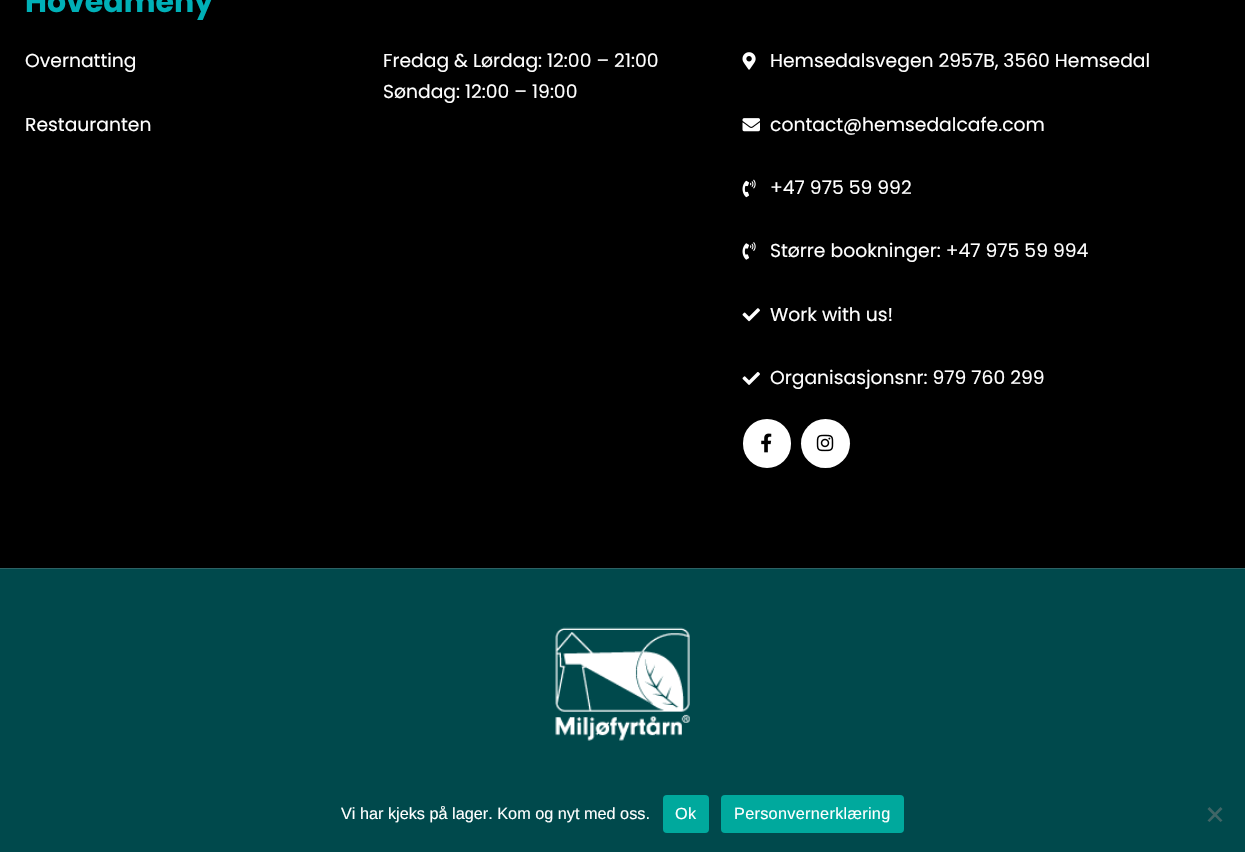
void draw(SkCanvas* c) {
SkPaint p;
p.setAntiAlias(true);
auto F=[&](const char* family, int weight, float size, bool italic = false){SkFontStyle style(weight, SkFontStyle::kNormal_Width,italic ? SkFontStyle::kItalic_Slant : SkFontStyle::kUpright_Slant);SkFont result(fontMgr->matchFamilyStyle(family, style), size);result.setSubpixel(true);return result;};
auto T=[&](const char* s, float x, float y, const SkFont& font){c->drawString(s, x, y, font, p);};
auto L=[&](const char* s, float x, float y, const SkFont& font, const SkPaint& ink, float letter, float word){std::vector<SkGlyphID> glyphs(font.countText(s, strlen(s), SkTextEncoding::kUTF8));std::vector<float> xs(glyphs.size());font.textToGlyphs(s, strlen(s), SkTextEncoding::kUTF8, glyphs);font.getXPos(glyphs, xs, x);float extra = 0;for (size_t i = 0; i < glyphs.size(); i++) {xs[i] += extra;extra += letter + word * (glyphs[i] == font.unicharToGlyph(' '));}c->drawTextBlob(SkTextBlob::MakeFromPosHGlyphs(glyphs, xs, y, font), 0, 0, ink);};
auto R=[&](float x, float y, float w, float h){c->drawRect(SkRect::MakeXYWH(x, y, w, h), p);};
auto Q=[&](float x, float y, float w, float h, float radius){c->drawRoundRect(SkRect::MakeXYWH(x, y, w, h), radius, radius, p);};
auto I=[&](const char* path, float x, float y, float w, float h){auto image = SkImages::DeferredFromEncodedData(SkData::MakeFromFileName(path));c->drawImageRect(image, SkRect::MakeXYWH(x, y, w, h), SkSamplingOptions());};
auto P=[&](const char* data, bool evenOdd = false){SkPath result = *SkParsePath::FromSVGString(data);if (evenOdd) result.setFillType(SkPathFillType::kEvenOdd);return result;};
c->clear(0xff000000);
auto f1 = F("Poppins",700,30);
p.setColor(0xff00b0b7);
T("Hovedmeny",25,12,f1);
auto f2 = F("Poppins",400,18.75);
p.setColor(0xffffffff);
T("Overnatting",25,67,f2);
T("Restauranten",25,131,f2);
T("Fredag & Lørdag: 12:00 – 21:00",383,67,f2);
T("Søndag: 12:00 – 19:00",383,98,f2);
I("1.png",742,52,14,18);
T("Hemsedalsvegen 2957B, 3560 Hemsedal",770,67,f2);
I("2.png",742,118,18,14);
T("contact@hemsedalcafe.com",770,131,f2);
I("3.png",742,179,14,19);
T("+47 975 59 992",770,194,f2);
I("4.png",742,242,14,18);
T("Større bookninger: +47 975 59 994",770,257,f2);
I("5.png",742,308,18,14);
T("Work with us!",770,321,f2);
I("6.png",742,372,18,13);
T("Organisasjonsnr: 979 760 299",770,384,f2);
Q(743,419,48,49,24);
I("7.png",761,433,11,20);
c->drawCircle(825.5,443.5,24.5,p);
I("8.png",816,434,18,18);
p.setColor(0xff00494c);
R(0,569,1245,283);
p.setColor(0xff2d6164);
R(0,568,1245,1);
I("9.png",555,627,135,114);
auto f3 = F("Liberation Sans",400,16.25);
p.setColor(0xffffffff);
T("Vi har kjeks på lager. Kom og nyt med oss.",341,819,f3);
p.setColor(0xff00a99d);
Q(663,795,46,38,4);
p.setColor(0xffffffff);
L("Ok",675,819,f3,p,.3,0);
p.setColor(0xff00a99d);
Q(721,795,183,38,4);
p.setColor(0xffffffff);
L("Personvernerklæring",734,819,f3,p,.3,0);
p.setColor(0xff406566);
c->drawPath(P("M1220.5 807l2 2l-13 13l-2-1.5z"),p);
c->drawPath(P("M1207.5 809l2-2l13 13.5l-2 1.5z"),p);
}
